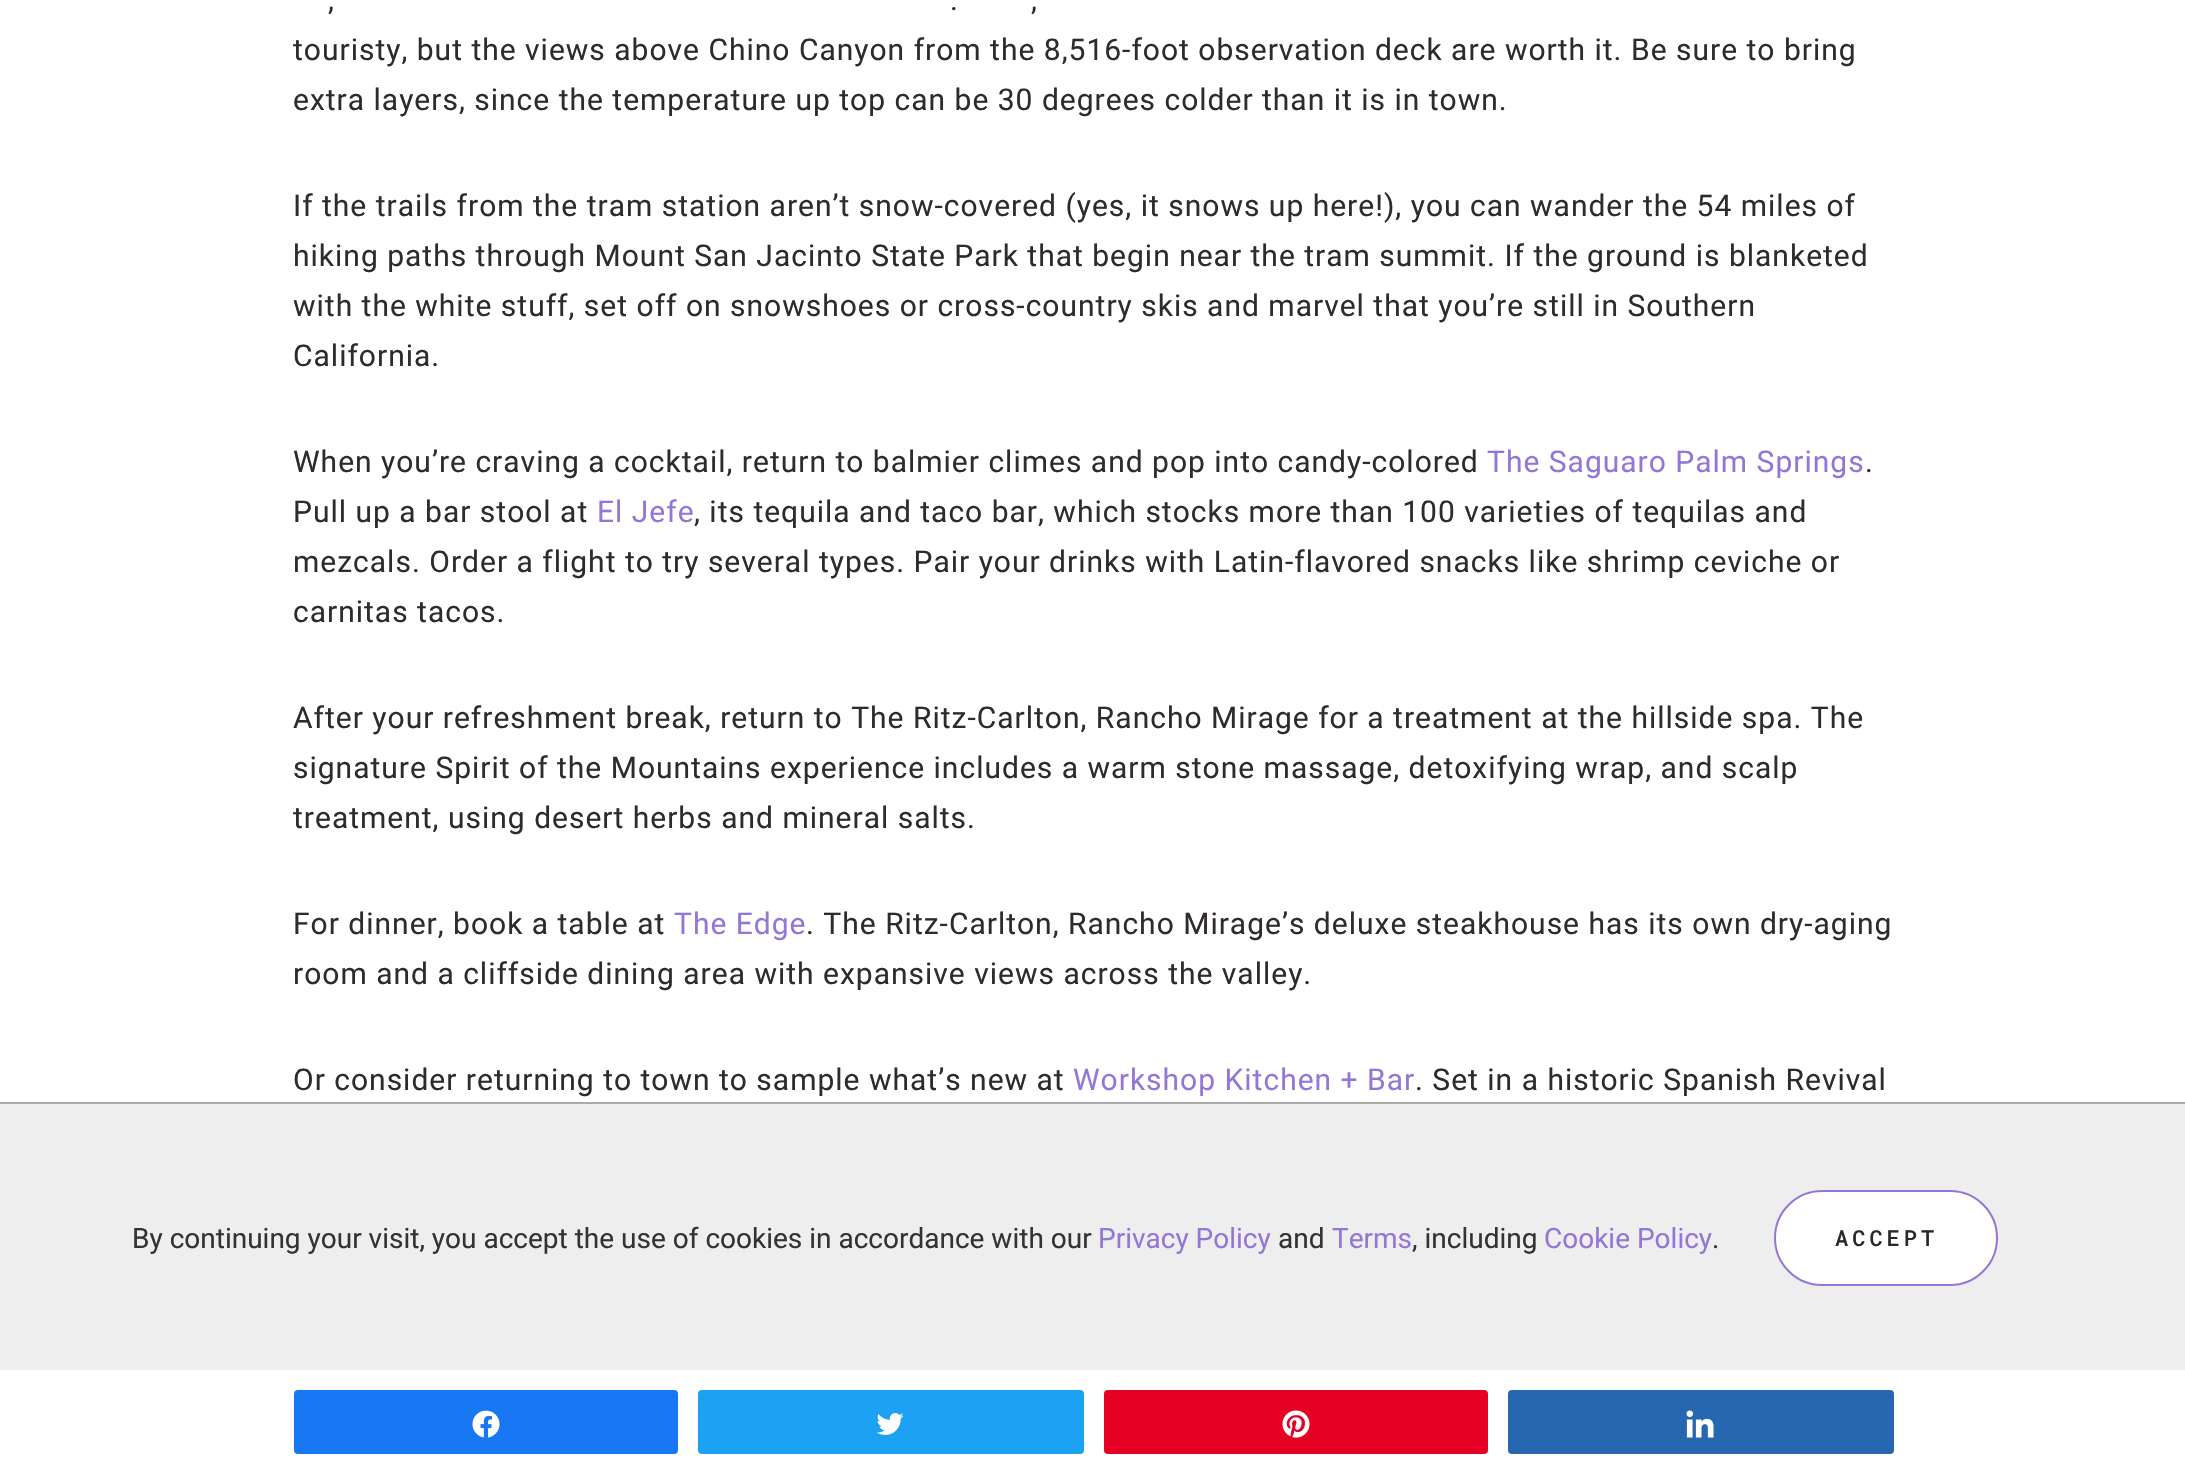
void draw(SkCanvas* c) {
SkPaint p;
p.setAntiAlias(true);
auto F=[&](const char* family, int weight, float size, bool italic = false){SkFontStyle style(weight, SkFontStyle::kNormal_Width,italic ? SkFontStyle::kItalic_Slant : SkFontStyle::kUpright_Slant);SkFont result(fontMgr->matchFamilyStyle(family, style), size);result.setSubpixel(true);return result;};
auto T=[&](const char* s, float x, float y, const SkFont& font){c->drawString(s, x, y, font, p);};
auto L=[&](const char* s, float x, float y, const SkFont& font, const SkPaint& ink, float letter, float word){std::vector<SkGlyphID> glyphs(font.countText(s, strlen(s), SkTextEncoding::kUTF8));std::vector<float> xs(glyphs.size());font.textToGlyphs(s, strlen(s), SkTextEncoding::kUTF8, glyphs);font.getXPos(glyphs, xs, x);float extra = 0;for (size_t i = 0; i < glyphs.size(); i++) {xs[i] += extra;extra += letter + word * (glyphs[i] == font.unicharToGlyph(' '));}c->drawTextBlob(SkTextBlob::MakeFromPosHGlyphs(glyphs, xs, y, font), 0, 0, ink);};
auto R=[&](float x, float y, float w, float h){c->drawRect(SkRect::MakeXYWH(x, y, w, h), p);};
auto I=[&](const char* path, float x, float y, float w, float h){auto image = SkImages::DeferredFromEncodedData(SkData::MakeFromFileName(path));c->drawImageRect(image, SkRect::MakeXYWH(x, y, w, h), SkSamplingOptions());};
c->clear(0xffffffff);
auto f1 = F("Roboto",400,30);
p.setColor(0xff302b2b);
L(",",328,10,f1,p,1,0);
L(".",950,10,f1,p,1,0);
L(",",1031,10,f1,p,1,0);
L("touristy, but the views above Chino Canyon from the 8,516-foot observation deck are worth it. Be sure to bring",293,60,f1,p,1,0);
L("extra layers, since the temperature up top can be 30 degrees colder than it is in town.",293,110,f1,p,1,0);
L("If the trails from the tram station aren’t snow-covered (yes, it snows up here!), you can wander the 54 miles of",293,216,f1,p,1,0);
L("hiking paths through Mount San Jacinto State Park that begin near the tram summit. If the ground is blanketed",293,266,f1,p,1,0);
L("with the white stuff, set off on snowshoes or cross-country skis and marvel that you’re still in Southern",293,316,f1,p,1,0);
L("California.",293,366,f1,p,1,0);
L("When you’re craving a cocktail, return to balmier climes and pop into candy-colored",293,472,f1,p,1,0);
p.setColor(0xff9476d7);
L("The Saguaro Palm Springs",1487,472,f1,p,1,0);
p.setColor(0xff302b2b);
L(".",1865,472,f1,p,1,0);
L("Pull up a bar stool at",293,522,f1,p,1,0);
p.setColor(0xff9476d7);
L("El Jefe",597,522,f1,p,1,0);
p.setColor(0xff302b2b);
L(", its tequila and taco bar, which stocks more than 100 varieties of tequilas and",694,522,f1,p,1,0);
L("mezcals. Order a flight to try several types. Pair your drinks with Latin-flavored snacks like shrimp ceviche or",293,572,f1,p,1,0);
L("carnitas tacos.",293,622,f1,p,1,0);
L("After your refreshment break, return to The Ritz-Carlton, Rancho Mirage for a treatment at the hillside spa. The",293,728,f1,p,1,0);
L("signature Spirit of the Mountains experience includes a warm stone massage, detoxifying wrap, and scalp",293,778,f1,p,1,0);
L("treatment, using desert herbs and mineral salts.",293,828,f1,p,1,0);
L("For dinner, book a table at",293,934,f1,p,1,0);
p.setColor(0xff9476d7);
L("The Edge",674,934,f1,p,1,0);
p.setColor(0xff302b2b);
L(". The Ritz-Carlton, Rancho Mirage’s deluxe steakhouse has its own dry-aging",806,934,f1,p,1,0);
L("room and a cliffside dining area with expansive views across the valley.",293,984,f1,p,1,0);
L("Or consider returning to town to sample what’s new at",293,1090,f1,p,1,0);
p.setColor(0xff9476d7);
L("Workshop Kitchen + Bar",1073,1090,f1,p,1,0);
p.setColor(0xff302b2b);
L(". Set in a historic Spanish Revival",1415,1090,f1,p,1,0);
p.setColor(0xffeeeeee);
R(0,1104,2185,266);
p.setColor(0xffaaaaaa);
R(0,1102,2185,2);
auto f2 = F("Roboto",400,28);
p.setColor(0xff333333);
T("By continuing your visit, you accept the use of cookies in accordance with our",132,1248,f2);
p.setColor(0xff9476d7);
T("Privacy Policy",1098,1248,f2);
p.setColor(0xff333333);
T("and",1278,1248,f2);
p.setColor(0xff9476d7);
T("Terms",1332,1248,f2);
p.setColor(0xff333333);
T(", including",1412,1248,f2);
p.setColor(0xff9476d7);
T("Cookie Policy",1544,1248,f2);
p.setColor(0xff333333);
T(".",1712,1248,f2);
p.setColor(0xffffffff);
c->drawRoundRect(SkRect::MakeXYWH(1775,1191,222,94),47,47,p);
p.setStroke(true);
p.setStrokeWidth(2);
p.setColor(0xff9476d7);
c->drawRoundRect(SkRect::MakeXYWH(1775,1191,222,94),47,47,p);
auto f3 = F("Roboto Mono",500,22);
p.setStroke(false);
p.setColor(0xff29292c);
L("ACCEPT",1835,1246,f3,p,4,0);
p.setColor(0xff1877f2);
c->drawRoundRect(SkRect::MakeXYWH(295,1391,382,62),3,3,p);
p.setStroke(true);
c->drawRoundRect(SkRect::MakeXYWH(295,1391,382,62),3,3,p);
I("1.png",472,1410,28,28);
p.setStroke(false);
p.setColor(0xff1da1f2);
c->drawRoundRect(SkRect::MakeXYWH(699,1391,384,62),3,3,p);
p.setStroke(true);
c->drawRoundRect(SkRect::MakeXYWH(699,1391,384,62),3,3,p);
I("2.png",876,1413,28,22);
p.setStroke(false);
p.setColor(0xffe60023);
c->drawRoundRect(SkRect::MakeXYWH(1105,1391,382,62),3,3,p);
p.setStroke(true);
c->drawRoundRect(SkRect::MakeXYWH(1105,1391,382,62),3,3,p);
I("3.png",1282,1410,28,28);
p.setStroke(false);
p.setColor(0xff2767b1);
c->drawRoundRect(SkRect::MakeXYWH(1509,1391,384,62),3,3,p);
p.setStroke(true);
c->drawRoundRect(SkRect::MakeXYWH(1509,1391,384,62),3,3,p);
I("4.png",1686,1410,28,28);
}
